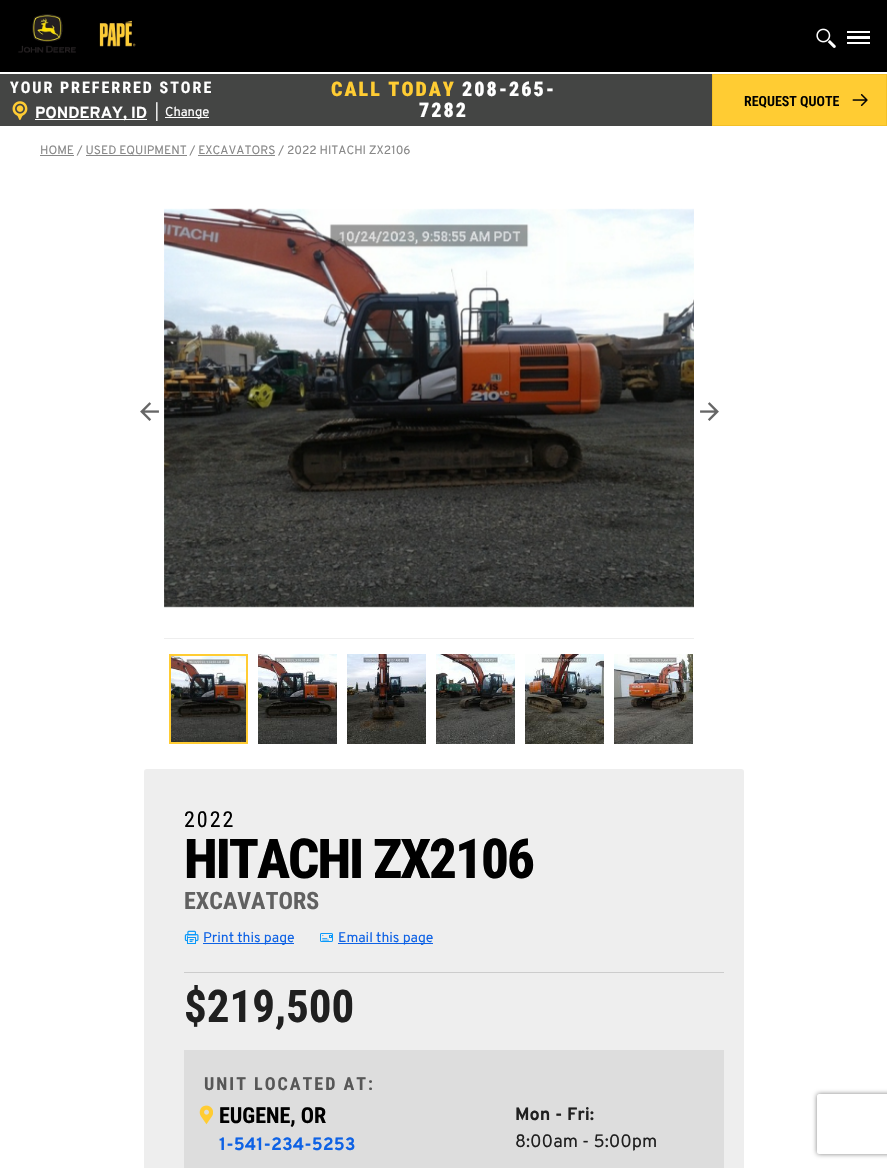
void draw(SkCanvas* c) {
SkPaint p;
p.setAntiAlias(true);
auto F=[&](const char* family, int weight, float size, bool italic = false){SkFontStyle style(weight, SkFontStyle::kNormal_Width,italic ? SkFontStyle::kItalic_Slant : SkFontStyle::kUpright_Slant);SkFont result(fontMgr->matchFamilyStyle(family, style), size);result.setSubpixel(true);return result;};
auto T=[&](const char* s, float x, float y, const SkFont& font){c->drawString(s, x, y, font, p);};
auto L=[&](const char* s, float x, float y, const SkFont& font, const SkPaint& ink, float letter, float word){std::vector<SkGlyphID> glyphs(font.countText(s, strlen(s), SkTextEncoding::kUTF8));std::vector<float> xs(glyphs.size());font.textToGlyphs(s, strlen(s), SkTextEncoding::kUTF8, glyphs);font.getXPos(glyphs, xs, x);float extra = 0;for (size_t i = 0; i < glyphs.size(); i++) {xs[i] += extra;extra += letter + word * (glyphs[i] == font.unicharToGlyph(' '));}c->drawTextBlob(SkTextBlob::MakeFromPosHGlyphs(glyphs, xs, y, font), 0, 0, ink);};
auto R=[&](float x, float y, float w, float h){c->drawRect(SkRect::MakeXYWH(x, y, w, h), p);};
auto Q=[&](float x, float y, float w, float h, float radius){c->drawRoundRect(SkRect::MakeXYWH(x, y, w, h), radius, radius, p);};
auto I=[&](const char* path, float x, float y, float w, float h){auto image = SkImages::DeferredFromEncodedData(SkData::MakeFromFileName(path));c->drawImageRect(image, SkRect::MakeXYWH(x, y, w, h), SkSamplingOptions());};
auto P=[&](const char* data, bool evenOdd = false){SkPath result = *SkParsePath::FromSVGString(data);if (evenOdd) result.setFillType(SkPathFillType::kEvenOdd);return result;};
c->clear(0xffffffff);
p.setColor(0xff000000);
R(0,0,887,72);
I("1.png",18,14,118,39);
I("2.png",816,28,20,20);
p.setColor(0xffffffff);
R(847,36,23,3);
R(847,31,23,2);
R(847,42,23,2);
p.setColor(0xff444544);
R(0,74,712,52);
auto f1 = F("Roboto Condensed",700,16);
p.setColor(0xffffffff);
L("YOUR PREFERRED STORE",10,93,f1,p,2,0);
I("3.png",12,101,16,19);
R(35,119,112,1);
auto f2 = F("Overpass",700,16);
T("PONDERAY, ID",35,118,f2);
auto f3 = F("Overpass",400,13);
T("|",155,116,f3);
R(165,117,44,1);
T("Change",165,116,f3);
auto f4 = F("Roboto Condensed",900,20);
p.setColor(0xffffcc33);
L("CALL TODAY",331,96,f4,p,2,0);
p.setColor(0xffffffff);
L("208-265-",462,96,f4,p,2,0);
L("7282",419,117,f4,p,2,0);
p.setColor(0xffffcc33);
c->drawRect(SkRect::MakeXYWH(712.5,74.5,174,51),p);
p.setStroke(true);
p.setStrokeWidth(1);
p.setColor(0xfff3c027);
c->drawRect(SkRect::MakeXYWH(712.5,74.5,174,51),p);
auto f5 = F("Roboto Condensed",600,14);
p.setStroke(false);
p.setColor(0xff000000);
T("REQUEST QUOTE",744,106,f5);
I("4.png",852,94,16,13);
p.setColor(0xff888888);
R(40,155,34,1);
auto f6 = F("Overpass",400,12);
T("HOME / USED EQUIPMENT / EXCAVATORS / 2022 HITACHI ZX2106",40,154,f6);
R(86,155,101,1);
R(198,155,77,1);
p.setColor(0xffeeeeee);
R(164,638,530,1);
I("5.png",140,402,19,19);
I("6.png",164,208,530,400);
I("7.png",700,402,19,19);
p.setStroke(true);
p.setStrokeWidth(2);
p.setColor(0xffffcc33);
c->drawRect(SkRect::MakeXYWH(170,655,77,88),p);
I("8.png",171,656,75,86);
I("9.png",258,654,79,90);
I("10.png",347,654,79,90);
I("11.png",436,654,79,90);
I("12.png",525,654,79,90);
I("13.png",614,654,79,90);
p.setStroke(false);
p.setColor(0xffeeeeee);
Q(144,769,600,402,3);
auto f7 = F("Roboto Condensed",400,22);
p.setColor(0xff000000);
L("2022",184,827,f7,p,2,0);
auto f8 = F("Roboto Condensed",800,55);
L("HITACHI ZX2106",184,878,f8,p,-2,0);
auto f9 = F("Roboto Condensed",700,24);
p.setColor(0xff616161);
T("EXCAVATORS",184,909,f9);
I("14.png",184,930,15,14);
p.setColor(0xff0e62e5);
R(203,943,91,1);
auto f10 = F("Overpass",400,14);
T("Print this page",203,942,f10);
I("15.png",320,933,13,9);
R(338,943,95,1);
T("Email this page",338,942,f10);
p.setColor(0xffcccccc);
R(184,972,540,1);
auto f11 = F("Roboto Condensed",700,45);
p.setColor(0xff202020);
T("$219,500",184,1022,f11);
p.setColor(0xffdddddd);
R(184,1050,540,118);
auto f12 = F("Roboto Condensed",700,18);
p.setColor(0xff575757);
L("UNIT LOCATED AT:",204,1090,f12,p,2,0);
I("16.png",199,1105,14,20);
auto f13 = F("Roboto Condensed",700,22);
p.setColor(0xff000000);
T("EUGENE, OR",219,1123,f13);
auto f14 = F("Overpass",700,18);
p.setColor(0xff0e62e5);
T("1-541-234-5253",219,1150,f14);
p.setColor(0xff202020);
T("Mon - Fri:",515,1120,f14);
auto f15 = F("Overpass",400,18);
T("8:00am - 5:00pm",515,1147,f15);
c->save();
c->clipPath(P("M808 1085h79v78h-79zm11 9h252c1 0 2 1 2 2v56c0 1-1 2-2 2h-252c-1 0-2-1-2-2v-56c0-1 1-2 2-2z",true),true);
p.setColor(0xff808080);
p.setMaskFilter(SkMaskFilter::MakeBlur(kNormal_SkBlurStyle, 2.5));
c->drawRoundRect(SkRect::MakeXYWH(817,1094,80,60),2,2,p);
p.setMaskFilter(nullptr);
c->restore();
}
